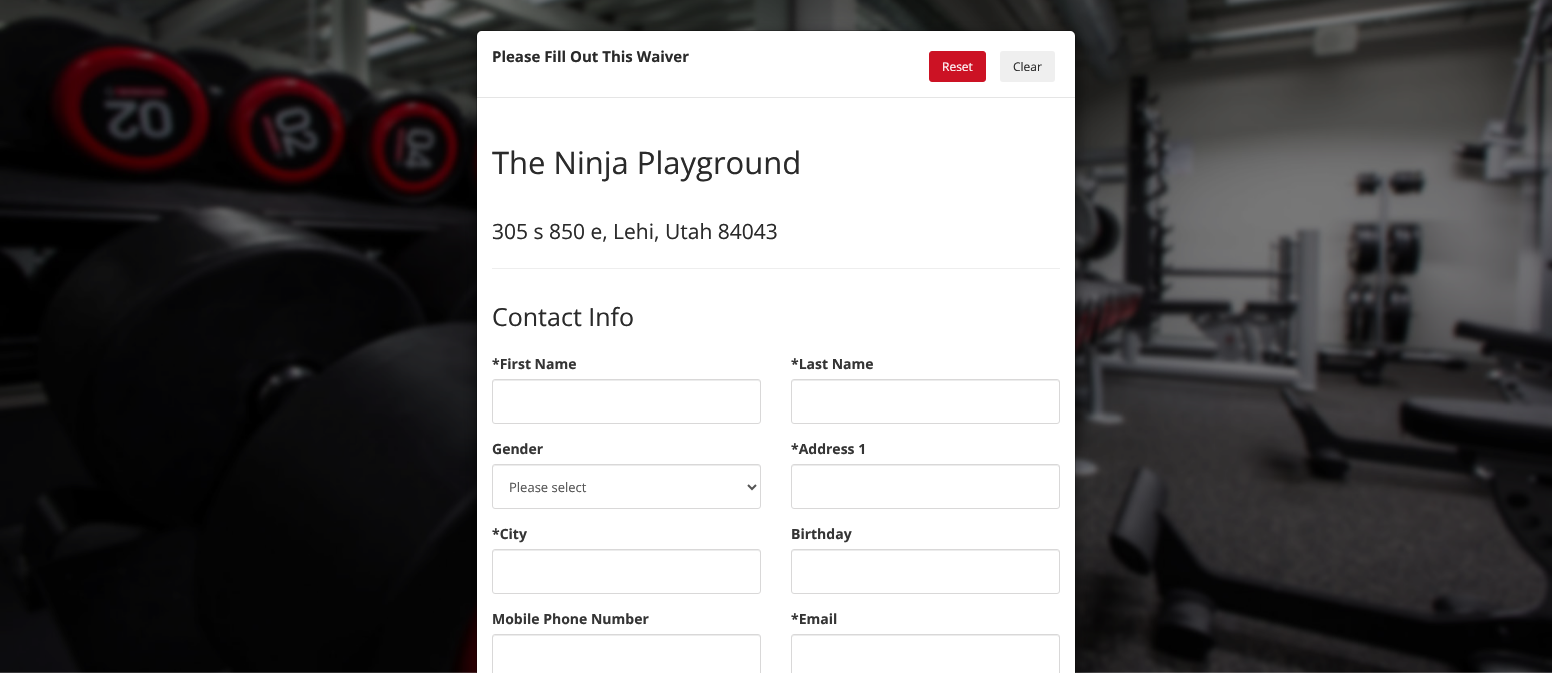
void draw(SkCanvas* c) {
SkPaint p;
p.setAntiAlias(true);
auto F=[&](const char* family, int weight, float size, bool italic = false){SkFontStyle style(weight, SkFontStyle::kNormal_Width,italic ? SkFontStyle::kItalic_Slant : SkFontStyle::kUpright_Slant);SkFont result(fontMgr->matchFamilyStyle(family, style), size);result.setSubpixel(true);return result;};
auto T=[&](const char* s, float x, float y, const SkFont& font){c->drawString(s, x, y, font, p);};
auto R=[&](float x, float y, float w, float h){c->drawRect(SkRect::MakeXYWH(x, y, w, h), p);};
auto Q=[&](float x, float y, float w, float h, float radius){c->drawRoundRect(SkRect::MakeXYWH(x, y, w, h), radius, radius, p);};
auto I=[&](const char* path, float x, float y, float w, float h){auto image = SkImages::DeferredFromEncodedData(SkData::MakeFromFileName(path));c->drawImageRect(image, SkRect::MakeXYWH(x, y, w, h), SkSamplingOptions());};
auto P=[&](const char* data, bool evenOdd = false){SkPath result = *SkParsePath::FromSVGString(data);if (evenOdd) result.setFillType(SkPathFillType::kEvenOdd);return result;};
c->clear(0xffffffff);
I("1.png",0,0,1552,673);
p.setColor(0x80000000);
p.setMaskFilter(SkMaskFilter::MakeBlur(kNormal_SkBlurStyle, 7.5));
c->drawRoundRect(SkRect::MakeXYWH(476,35,600,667),6,6,p);
p.setMaskFilter(nullptr);
p.setColor(0xffffffff);
c->drawPath(P("M482 31h588c3 0 5 2 5 5v637h-598v-637c0-3 2-5 5-5z"),p);
p.setStroke(true);
p.setStrokeWidth(1);
p.setColor(0x33000000);
c->drawRoundRect(SkRect::MakeXYWH(476.5,30.5,599,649),5.5,5.5,p);
p.setStroke(false);
p.setColor(0xffe5e5e5);
R(477,97,598,1);
auto f1 = F("Open Sans",700,15);
p.setColor(0xff2a2a2a);
T("Please Fill Out This Waiver",492,62,f1);
p.setColor(0xffcc1224);
c->drawRoundRect(SkRect::MakeXYWH(929.5,51.5,56,30),2.5,2.5,p);
p.setStroke(true);
c->drawRoundRect(SkRect::MakeXYWH(929.5,51.5,56,30),2.5,2.5,p);
auto f2 = F("Open Sans",400,12);
p.setStroke(false);
p.setColor(0xffffffff);
T("Reset",942,71,f2);
p.setColor(0xffefefef);
Q(1000,51,55,31,3);
p.setColor(0xff2a2a2a);
T("Clear",1013,71,f2);
auto f3 = F("Open Sans",400,31);
T("The Ninja Playground",492,174,f3);
auto f4 = F("Open Sans",400,21);
T("305 s 850 e, Lehi, Utah 84043",492,239,f4);
p.setColor(0xffeeeeee);
R(492,268,568,1);
auto f5 = F("Open Sans",400,25);
p.setColor(0xff2a2a2a);
T("Contact Info",492,326,f5);
auto f6 = F("Open Sans",700,14);
p.setColor(0xff353535);
T("*First Name",492,369,f6);
p.setColor(0xffececec);
c->drawPath(P("M495 381h263c1 0 2 1 2 2c0-1 0-3-2-3h-263l-2 1v2c0-1 1-2 2-2z"),p);
p.setStroke(true);
p.setColor(0xffd9d8d8);
c->drawRoundRect(SkRect::MakeXYWH(492.5,379.5,268,44),2.5,2.5,p);
p.setStroke(false);
p.setColor(0xff353535);
T("*Last Name",791,369,f6);
p.setColor(0xffececec);
c->drawPath(P("M794 381h263c1 0 2 1 2 2v-2l-2-1h-263c-2 0-2 2-2 3c0-1 1-2 2-2z"),p);
p.setStroke(true);
p.setColor(0xffd9d8d8);
c->drawRoundRect(SkRect::MakeXYWH(791.5,379.5,268,44),2.5,2.5,p);
p.setStroke(false);
p.setColor(0xff353535);
T("Gender",492,454,f6);
p.setColor(0xffececec);
c->drawPath(P("M495 466h263c1 0 2 1 2 2c0-1 0-3-2-3h-263l-2 1v2c0-1 1-2 2-2z"),p);
p.setStroke(true);
p.setColor(0xffd9d8d8);
c->drawRoundRect(SkRect::MakeXYWH(492.5,464.5,268,44),2.5,2.5,p);
p.setStrokeWidth(2);
p.setColor(0xff555555);
c->drawPath(P("M748 485l4 4l4-4"),p);
auto f7 = F("Open Sans",400,13);
p.setStroke(false);
T("Please select",509,492,f7);
p.setColor(0xff353535);
T("*Address 1",791,454,f6);
p.setColor(0xffececec);
c->drawPath(P("M794 466h263c1 0 2 1 2 2v-2l-2-1h-263c-2 0-2 2-2 3c0-1 1-2 2-2z"),p);
p.setStroke(true);
p.setStrokeWidth(1);
p.setColor(0xffd9d8d8);
c->drawRoundRect(SkRect::MakeXYWH(791.5,464.5,268,44),2.5,2.5,p);
p.setStroke(false);
p.setColor(0xff353535);
T("*City",492,539,f6);
p.setColor(0xffececec);
c->drawPath(P("M495 551h263c1 0 2 1 2 2c0-1 0-3-2-3h-263l-2 1v2c0-1 1-2 2-2z"),p);
p.setStroke(true);
p.setColor(0xffd9d8d8);
c->drawRoundRect(SkRect::MakeXYWH(492.5,549.5,268,44),2.5,2.5,p);
p.setStroke(false);
p.setColor(0xff353535);
T("Birthday",791,539,f6);
p.setColor(0xffececec);
c->drawPath(P("M794 551h263c1 0 2 1 2 2v-2l-2-1h-263c-2 0-2 2-2 3c0-1 1-2 2-2z"),p);
p.setStroke(true);
p.setColor(0xffd9d8d8);
c->drawRoundRect(SkRect::MakeXYWH(791.5,549.5,268,44),2.5,2.5,p);
p.setStroke(false);
p.setColor(0xff353535);
T("Mobile Phone Number",492,624,f6);
p.setColor(0xffececec);
c->drawPath(P("M495 636h263c1 0 2 1 2 2c0-1 0-3-2-3h-263l-2 1v2c0-1 1-2 2-2z"),p);
p.setStroke(true);
p.setColor(0xffd9d8d8);
c->drawRoundRect(SkRect::MakeXYWH(492.5,634.5,268,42),2.5,2.5,p);
p.setStroke(false);
p.setColor(0xff353535);
T("*Email",791,624,f6);
p.setColor(0xffececec);
c->drawPath(P("M794 636h263c1 0 2 1 2 2v-2l-2-1h-263c-2 0-2 2-2 3c0-1 1-2 2-2z"),p);
p.setStroke(true);
p.setColor(0xffd9d8d8);
c->drawRoundRect(SkRect::MakeXYWH(791.5,634.5,268,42),2.5,2.5,p);
}
